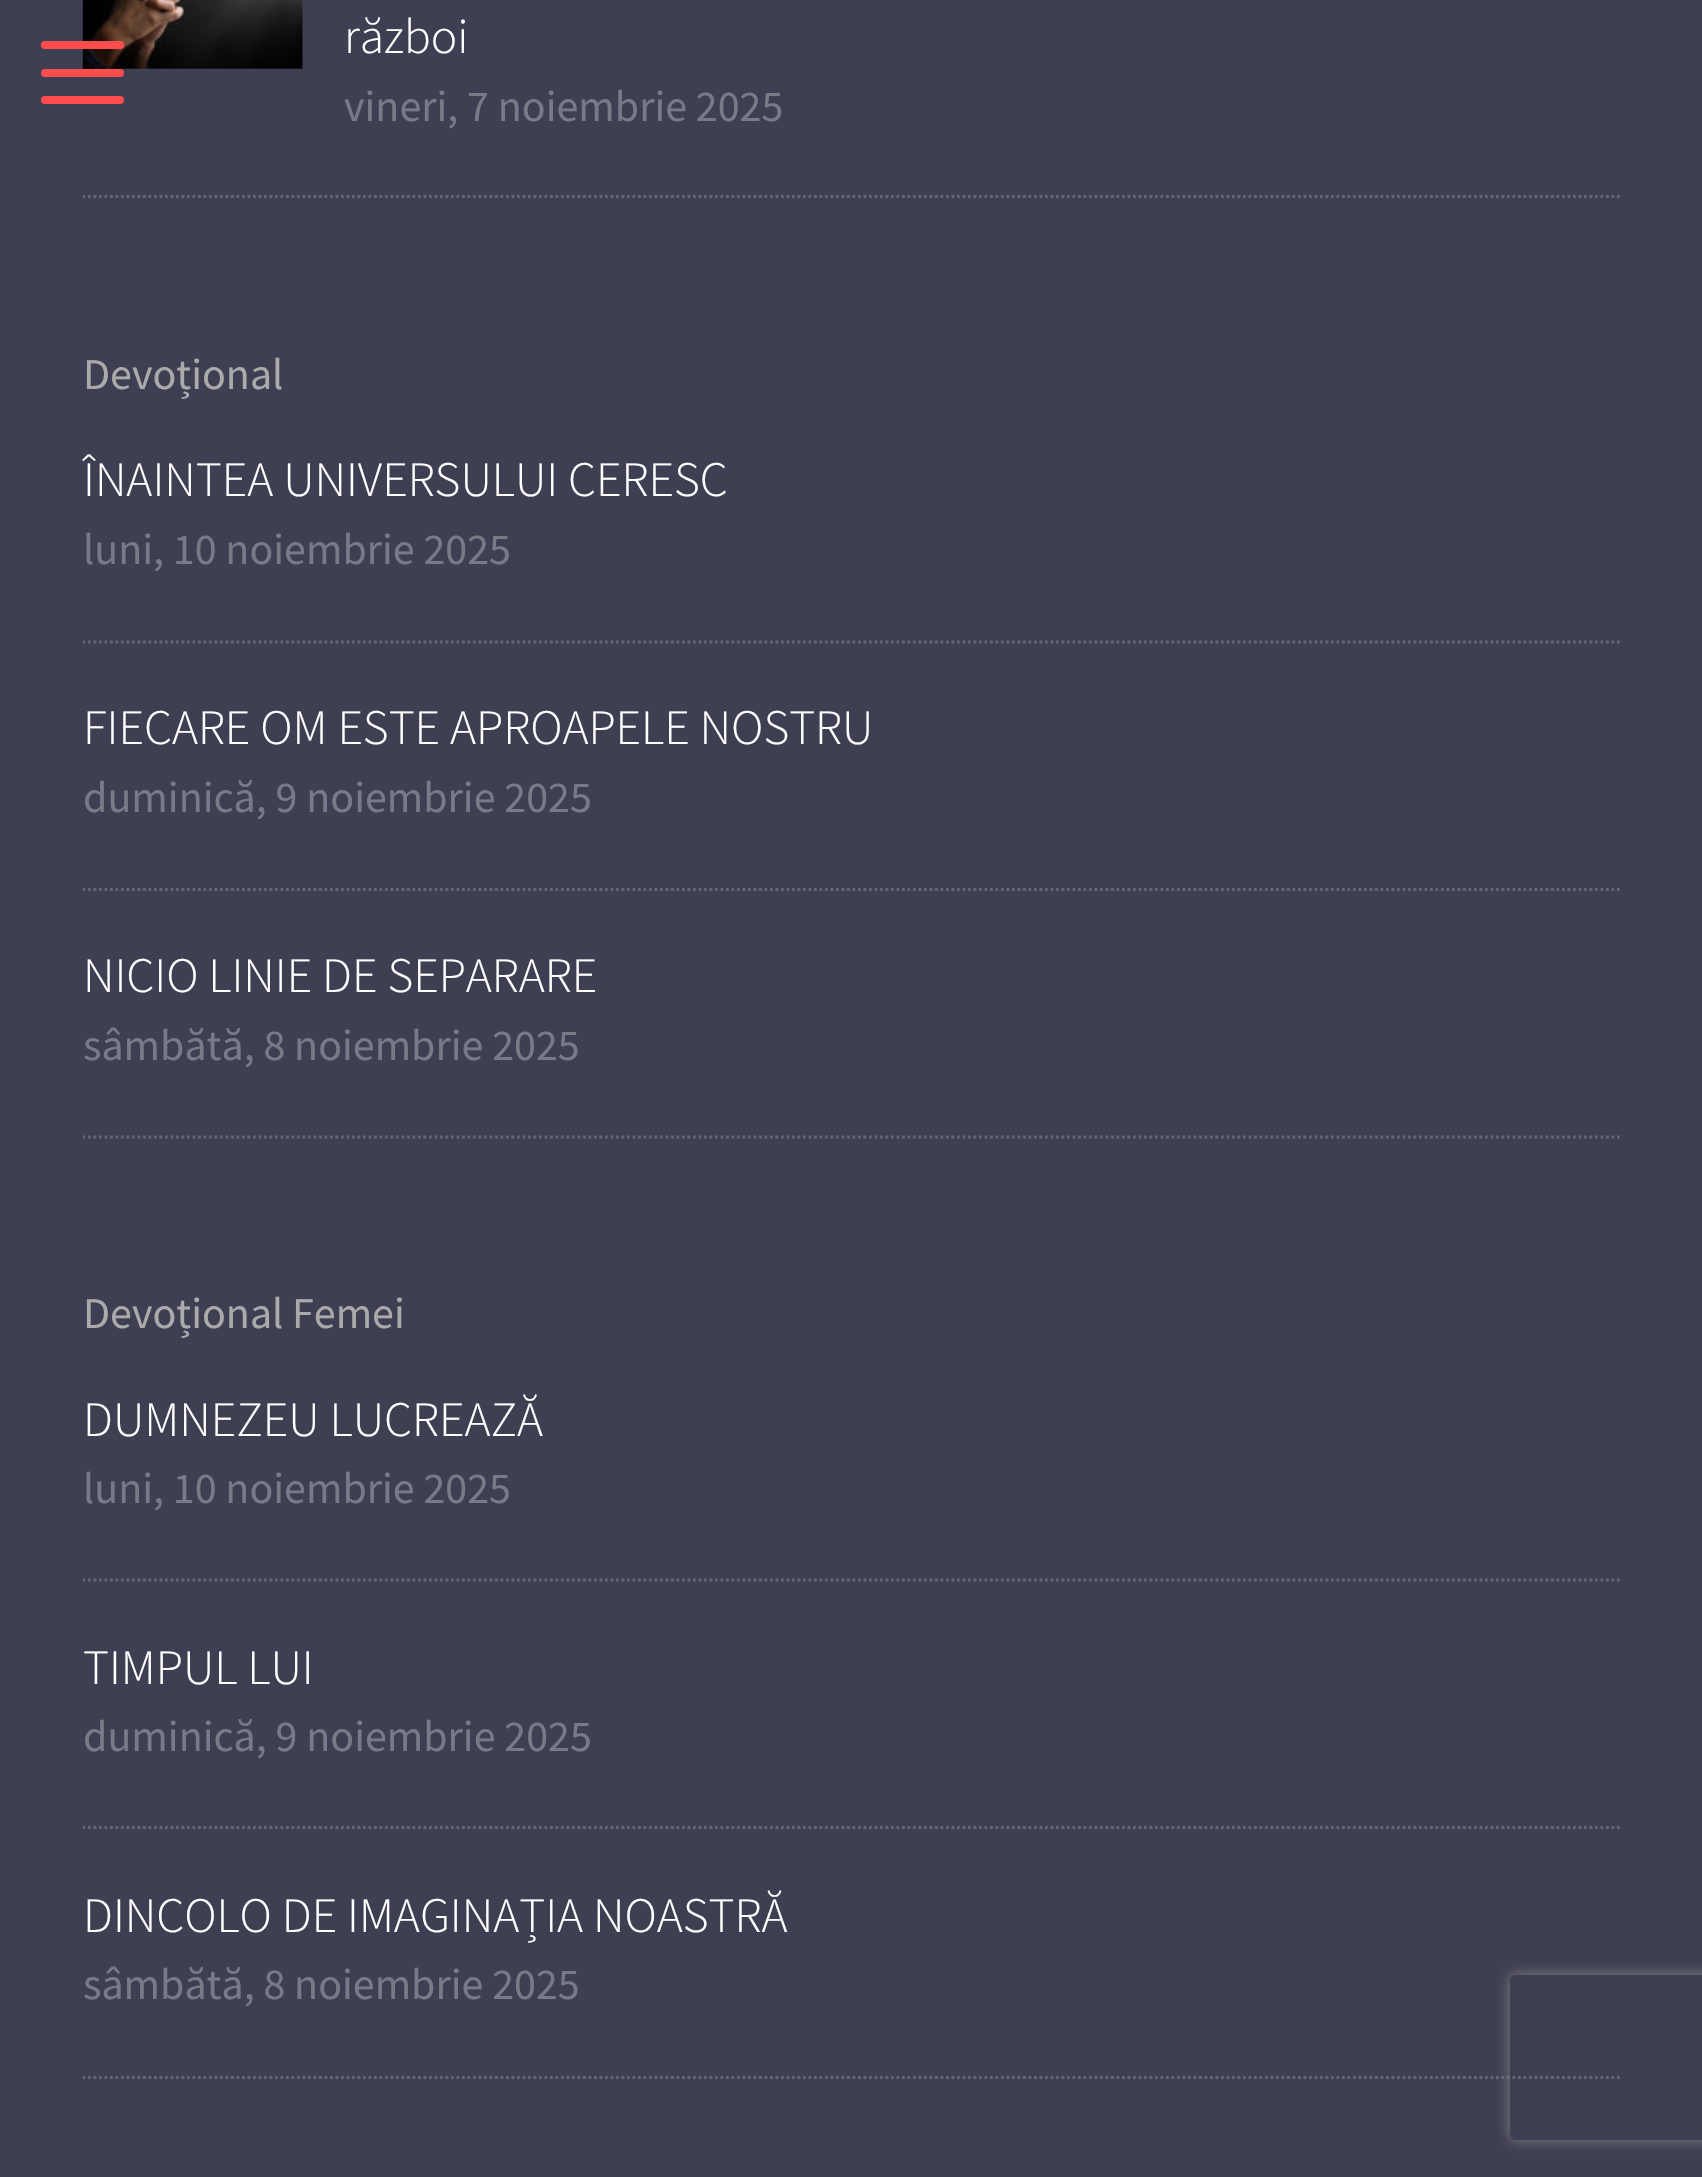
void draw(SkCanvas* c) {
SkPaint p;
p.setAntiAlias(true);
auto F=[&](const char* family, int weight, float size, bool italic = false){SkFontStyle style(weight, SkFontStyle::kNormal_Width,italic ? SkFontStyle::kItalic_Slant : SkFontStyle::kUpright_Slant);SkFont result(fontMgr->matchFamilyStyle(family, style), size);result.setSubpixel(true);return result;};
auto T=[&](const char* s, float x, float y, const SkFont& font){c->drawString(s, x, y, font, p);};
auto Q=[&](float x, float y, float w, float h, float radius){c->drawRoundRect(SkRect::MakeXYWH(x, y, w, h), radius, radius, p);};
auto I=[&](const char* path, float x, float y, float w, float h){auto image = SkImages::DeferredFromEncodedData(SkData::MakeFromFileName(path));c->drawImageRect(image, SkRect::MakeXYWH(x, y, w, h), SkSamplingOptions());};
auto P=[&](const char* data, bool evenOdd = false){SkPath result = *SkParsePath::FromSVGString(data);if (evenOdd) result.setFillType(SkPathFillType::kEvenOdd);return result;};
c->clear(0xff3f3f53);
p.setColor(0xffff4d4d);
Q(41,69,83,8,4);
I("1.png",82,0,221,69);
Q(41,41,83,8,4);
Q(41,96,83,8,4);
c->save();
c->clipRect(SkRect::MakeXYWH(83,0,1537,198));
p.setStroke(true);
p.setStrokeWidth(2.8);
p.setColor(0xff656575);
p.setPathEffect(SkDashPathEffect::Make({{2.75f,2.75f}}, 0));
c->drawPath(P("M82.5 196.5h1537.5"),p);
p.setPathEffect(nullptr);
c->restore();
auto f1 = F("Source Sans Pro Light",300,49.5);
p.setStroke(false);
p.setColor(0xffffffff);
T("război",344,53,f1);
auto f2 = F("Source Sans Pro",400,44);
p.setColor(0xff797987);
T("vineri, 7 noiembrie 2025",344,121,f2);
p.setColor(0xffaaaaaa);
T("Devoțional",83,389,f2);
c->save();
c->clipRect(SkRect::MakeXYWH(83,349,1537,790));
p.setStroke(true);
p.setColor(0xff656575);
p.setPathEffect(SkDashPathEffect::Make({{2.75f,2.75f}}, 0));
c->drawPath(P("M82.5 642h1537.5"),p);
p.setPathEffect(nullptr);
c->restore();
p.setStroke(false);
p.setColor(0xffffffff);
T("ÎNAINTEA UNIVERSULUI CERESC",83,496,f1);
p.setColor(0xff797987);
T("luni, 10 noiembrie 2025",83,564,f2);
c->save();
c->clipRect(SkRect::MakeXYWH(83,349,1537,790));
p.setStroke(true);
p.setColor(0xff656575);
p.setPathEffect(SkDashPathEffect::Make({{2.75f,2.75f}}, 0));
c->drawPath(P("M82.5 889.5h1537.5"),p);
p.setPathEffect(nullptr);
c->restore();
p.setStroke(false);
p.setColor(0xffffffff);
T("FIECARE OM ESTE APROAPELE NOSTRU",83,744,f1);
p.setColor(0xff797987);
T("duminică, 9 noiembrie 2025",83,812,f2);
c->save();
c->clipRect(SkRect::MakeXYWH(83,349,1537,790));
p.setStroke(true);
p.setColor(0xff656575);
p.setPathEffect(SkDashPathEffect::Make({{2.75f,2.75f}}, 0));
c->drawPath(P("M82.5 1137h1537.5"),p);
p.setPathEffect(nullptr);
c->restore();
p.setStroke(false);
p.setColor(0xffffffff);
T("NICIO LINIE DE SEPARARE",83,992,f1);
p.setColor(0xff797987);
T("sâmbătă, 8 noiembrie 2025",83,1060,f2);
p.setColor(0xffaaaaaa);
T("Devoțional Femei",83,1328,f2);
c->save();
c->clipRect(SkRect::MakeXYWH(83,1290,1537,789));
p.setStroke(true);
p.setColor(0xff656575);
p.setPathEffect(SkDashPathEffect::Make({{2.75f,2.75f}}, 0));
c->drawPath(P("M82.5 1580h1537.5"),p);
p.setPathEffect(nullptr);
c->restore();
p.setStroke(false);
p.setColor(0xffffffff);
T("DUMNEZEU LUCREAZĂ",83,1436,f1);
p.setColor(0xff797987);
T("luni, 10 noiembrie 2025",83,1503,f2);
c->save();
c->clipRect(SkRect::MakeXYWH(83,1290,1537,789));
p.setStroke(true);
p.setColor(0xff656575);
p.setPathEffect(SkDashPathEffect::Make({{2.75f,2.75f}}, 0));
c->drawPath(P("M82.5 1827.5h1537.5"),p);
p.setPathEffect(nullptr);
c->restore();
p.setStroke(false);
p.setColor(0xffffffff);
T("TIMPUL LUI",83,1684,f1);
p.setColor(0xff797987);
T("duminică, 9 noiembrie 2025",83,1751,f2);
c->save();
c->clipRect(SkRect::MakeXYWH(83,1290,1537,789));
p.setStroke(true);
p.setColor(0xff656575);
p.setPathEffect(SkDashPathEffect::Make({{2.75f,2.75f}}, 0));
c->drawPath(P("M82.5 2077.5h1537.5"),p);
p.setPathEffect(nullptr);
c->restore();
p.setStroke(false);
p.setColor(0xffffffff);
T("DINCOLO DE IMAGINAȚIA NOASTRĂ",83,1932,f1);
p.setColor(0xff797987);
T("sâmbătă, 8 noiembrie 2025",83,1999,f2);
c->save();
c->clipPath(P("M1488 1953h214v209h-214zm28 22h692c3.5 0 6 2.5 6 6v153c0 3.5-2.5 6-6 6h-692c-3.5 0-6-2.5-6-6v-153c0-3.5 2.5-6 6-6z",true),true);
p.setColor(0xff808080);
p.setMaskFilter(SkMaskFilter::MakeBlur(kNormal_SkBlurStyle, 7));
c->drawRoundRect(SkRect::MakeXYWH(1510,1975,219,165),6,6,p);
p.setMaskFilter(nullptr);
c->restore();
}
